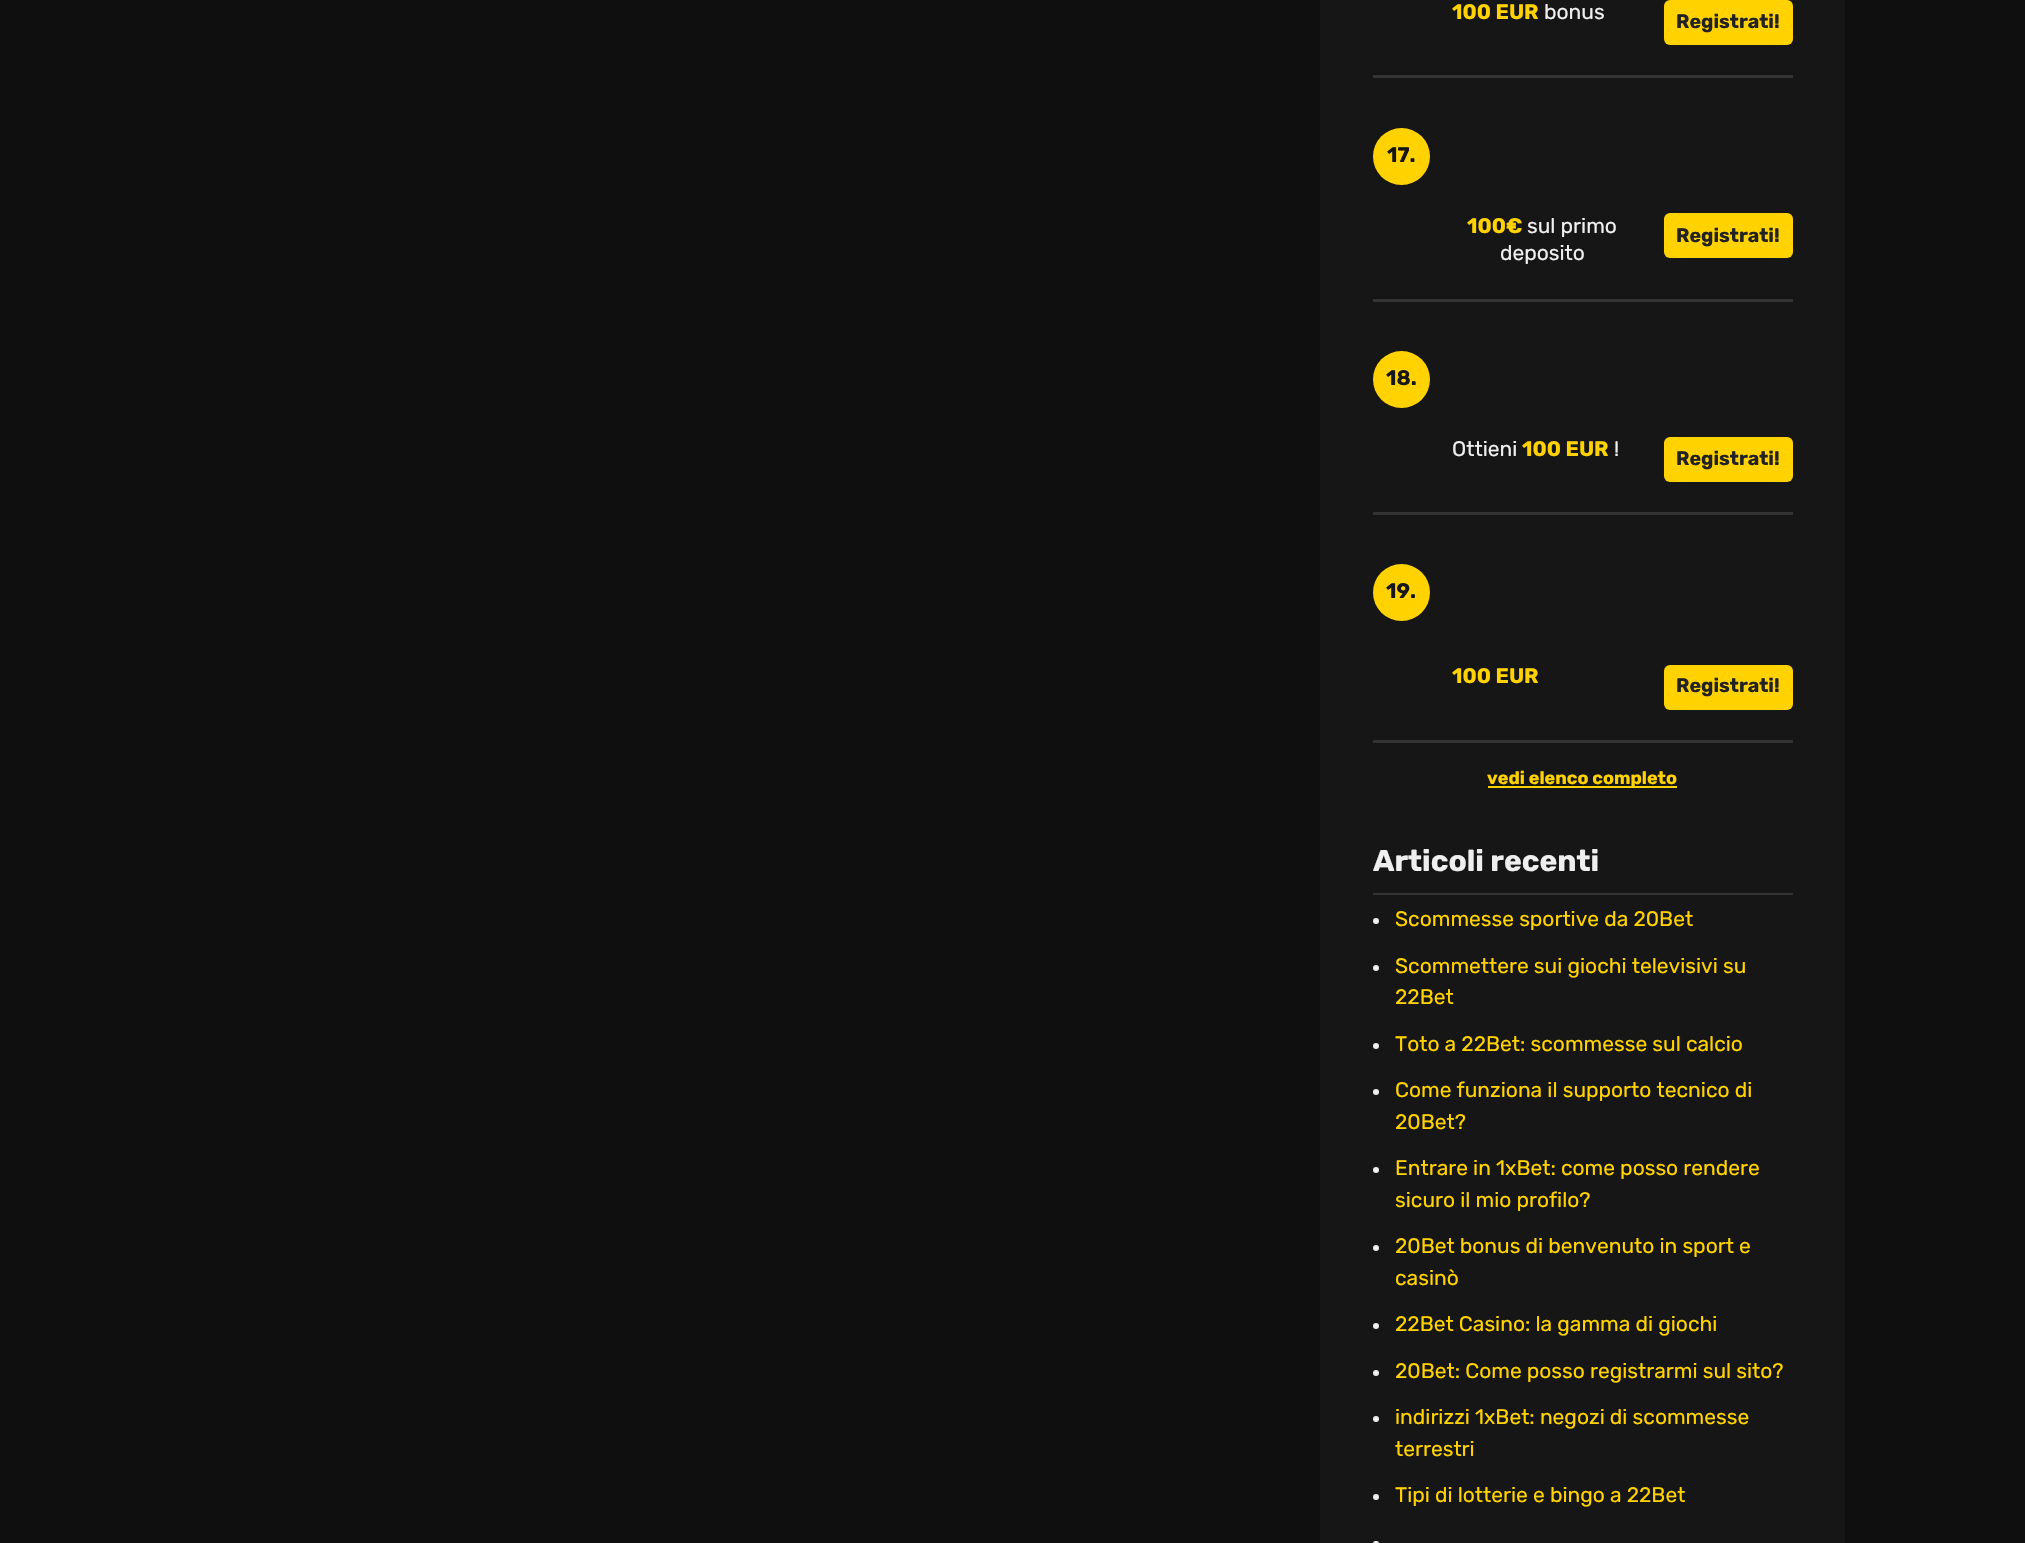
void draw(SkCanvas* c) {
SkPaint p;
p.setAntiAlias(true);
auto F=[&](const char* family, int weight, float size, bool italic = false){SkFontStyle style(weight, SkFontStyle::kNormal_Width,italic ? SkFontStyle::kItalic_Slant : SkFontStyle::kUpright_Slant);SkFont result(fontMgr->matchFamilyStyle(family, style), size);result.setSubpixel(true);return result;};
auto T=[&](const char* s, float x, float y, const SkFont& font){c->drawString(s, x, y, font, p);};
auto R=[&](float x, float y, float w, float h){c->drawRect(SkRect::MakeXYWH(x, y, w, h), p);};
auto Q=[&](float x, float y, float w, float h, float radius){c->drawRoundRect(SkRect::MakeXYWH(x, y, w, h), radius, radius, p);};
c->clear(0xff0f0f0f);
p.setColor(0xff161616);
R(1320,0,525,1543);
p.setColor(0xff333333);
R(1373,75,420,3);
auto f1 = F("Rubik",700,21);
p.setColor(0xffffd200);
T("100 EUR",1452,19,f1);
auto f2 = F("Rubik",400,21);
p.setColor(0xffefefef);
T("bonus",1544,19,f2);
p.setColor(0xffffd200);
Q(1664,0,129,45,6);
auto f3 = F("Rubik",700,19.5);
p.setColor(0xff222222);
T("Registrati!",1676,28,f3);
p.setColor(0xff333333);
R(1373,299,420,3);
p.setColor(0xffffd200);
c->drawCircle(1401.5,156.5,28.5,p);
p.setColor(0xff161616);
T("17.",1387,162,f1);
p.setColor(0xffffd200);
T("100€",1467,233,f1);
p.setColor(0xffefefef);
T("sul primo",1527,233,f2);
T("deposito",1500,260,f2);
p.setColor(0xffffd200);
Q(1664,213,129,45,6);
p.setColor(0xff222222);
T("Registrati!",1676,242,f3);
p.setColor(0xff333333);
R(1373,512,420,3);
p.setColor(0xffffd200);
c->drawCircle(1401.5,379.5,28.5,p);
p.setColor(0xff161616);
T("18.",1386,385,f1);
p.setColor(0xffefefef);
T("Ottieni",1452,456,f2);
p.setColor(0xffffd200);
T("100 EUR",1522,456,f1);
p.setColor(0xffefefef);
T("!",1614,456,f2);
p.setColor(0xffffd200);
Q(1664,437,129,45,6);
p.setColor(0xff222222);
T("Registrati!",1676,465,f3);
p.setColor(0xff333333);
R(1373,740,420,3);
p.setColor(0xffffd200);
c->drawCircle(1401.5,592.5,28.5,p);
p.setColor(0xff161616);
T("19.",1386,598,f1);
p.setColor(0xffffd200);
T("100 EUR",1452,683,f1);
Q(1664,665,129,45,6);
p.setColor(0xff222222);
T("Registrati!",1676,692,f3);
p.setColor(0xffffd200);
R(1488,786,189,2);
auto f4 = F("Rubik",700,18);
T("vedi elenco completo",1487,784,f4);
p.setColor(0xff333333);
R(1373,893,420,2);
auto f5 = F("Rubik",700,30);
p.setColor(0xffefefef);
T("Articoli recenti",1373,871,f5);
c->drawCircle(1376,921,3,p);
p.setColor(0xffffd200);
T("Scommesse sportive da 20Bet",1395,926,f2);
p.setColor(0xffefefef);
c->drawCircle(1376,968,3,p);
p.setColor(0xffffd200);
T("Scommettere sui giochi televisivi su",1395,973,f2);
T("22Bet",1395,1004,f2);
p.setColor(0xffefefef);
c->drawCircle(1376,1046,3,p);
p.setColor(0xffffd200);
T("Toto a 22Bet: scommesse sul calcio",1395,1051,f2);
p.setColor(0xffefefef);
c->drawCircle(1376,1092,3,p);
p.setColor(0xffffd200);
T("Come funziona il supporto tecnico di",1395,1097,f2);
T("20Bet?",1395,1129,f2);
p.setColor(0xffefefef);
c->drawCircle(1376,1170,3,p);
p.setColor(0xffffd200);
T("Entrare in 1xBet: come posso rendere",1395,1175,f2);
T("sicuro il mio profilo?",1395,1207,f2);
p.setColor(0xffefefef);
c->drawCircle(1376,1248,3,p);
p.setColor(0xffffd200);
T("20Bet bonus di benvenuto in sport e",1395,1253,f2);
T("casinò",1395,1285,f2);
p.setColor(0xffefefef);
c->drawCircle(1376,1326,3,p);
p.setColor(0xffffd200);
T("22Bet Casino: la gamma di giochi",1395,1331,f2);
p.setColor(0xffefefef);
c->drawCircle(1376,1373,3,p);
p.setColor(0xffffd200);
T("20Bet: Come posso registrarmi sul sito?",1395,1378,f2);
p.setColor(0xffefefef);
c->drawCircle(1376,1419,3,p);
p.setColor(0xffffd200);
T("indirizzi 1xBet: negozi di scommesse",1395,1424,f2);
T("terrestri",1395,1456,f2);
p.setColor(0xffefefef);
c->drawCircle(1376,1497,3,p);
p.setColor(0xffffd200);
T("Tipi di lotterie e bingo a 22Bet",1395,1502,f2);
p.setColor(0xffefefef);
Q(1373,1541,6,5,3);
}
